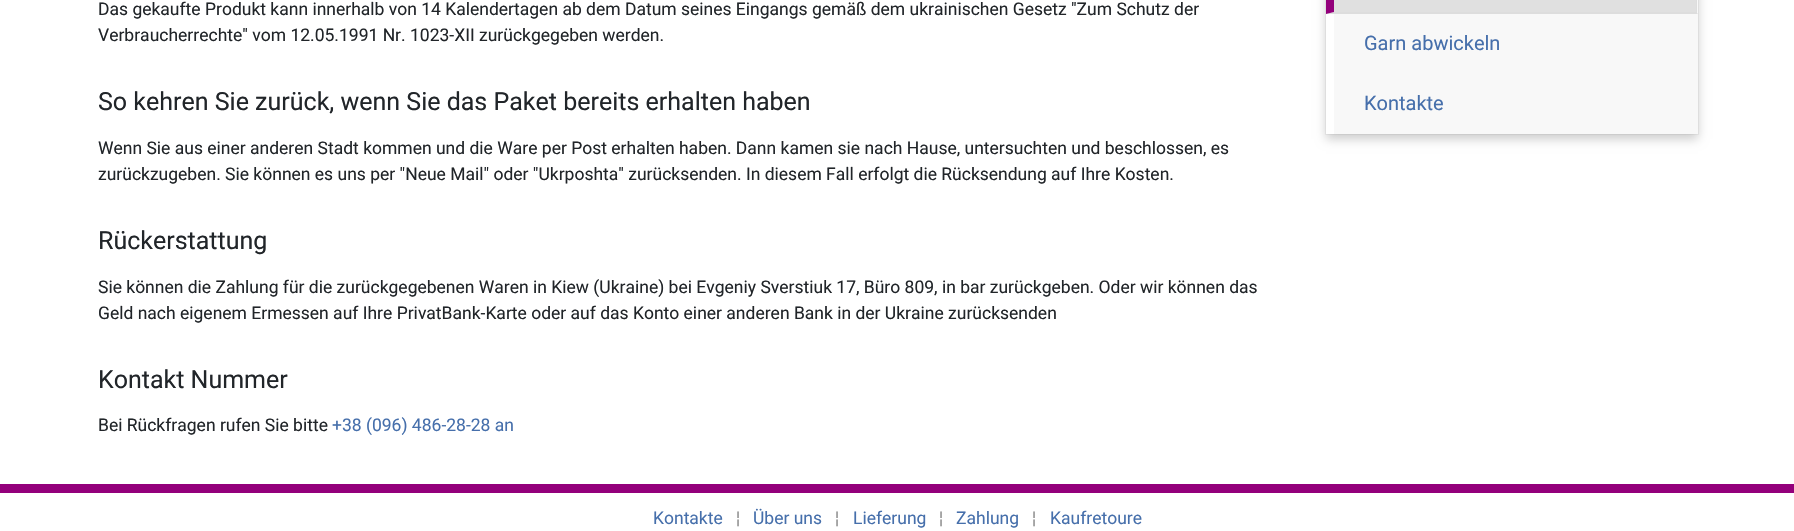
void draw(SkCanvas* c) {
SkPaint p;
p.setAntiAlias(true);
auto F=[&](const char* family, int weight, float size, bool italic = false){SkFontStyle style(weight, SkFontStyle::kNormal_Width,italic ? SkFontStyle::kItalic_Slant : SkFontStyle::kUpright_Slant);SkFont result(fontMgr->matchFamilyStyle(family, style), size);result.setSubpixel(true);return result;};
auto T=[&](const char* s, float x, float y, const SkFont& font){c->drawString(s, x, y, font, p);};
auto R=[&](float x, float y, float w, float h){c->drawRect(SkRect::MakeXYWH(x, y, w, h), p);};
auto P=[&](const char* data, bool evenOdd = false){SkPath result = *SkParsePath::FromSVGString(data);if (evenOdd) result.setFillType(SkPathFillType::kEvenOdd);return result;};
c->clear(0xffffffff);
auto f1 = F("Roboto",400,17.5);
p.setColor(0xff212529);
T("Das gekaufte Produkt kann innerhalb von 14 Kalendertagen ab dem Datum seines Eingangs gemäß dem ukrainischen Gesetz \"Zum Schutz der",98,15,f1);
T("Verbraucherrechte\" vom 12.05.1991 Nr. 1023-XII zurückgegeben werden.",98,41,f1);
auto f2 = F("Roboto",400,25);
T("So kehren Sie zurück, wenn Sie das Paket bereits erhalten haben",98,110,f2);
T("Wenn Sie aus einer anderen Stadt kommen und die Ware per Post erhalten haben. Dann kamen sie nach Hause, untersuchten und beschlossen, es",98,154,f1);
T("zurückzugeben. Sie können es uns per \"Neue Mail\" oder \"Ukrposhta\" zurücksenden. In diesem Fall erfolgt die Rücksendung auf Ihre Kosten.",98,180,f1);
T("Rückerstattung",98,249,f2);
T("Sie können die Zahlung für die zurückgegebenen Waren in Kiew (Ukraine) bei Evgeniy Sverstiuk 17, Büro 809, in bar zurückgeben. Oder wir können das",98,293,f1);
T("Geld nach eigenem Ermessen auf Ihre PrivatBank-Karte oder auf das Konto einer anderen Bank in der Ukraine zurücksenden",98,319,f1);
T("Kontakt Nummer",98,388,f2);
T("Bei Rückfragen rufen Sie bitte",98,431,f1);
p.setColor(0xff466fab);
T("+38 (096) 486-28-28 an",332,431,f1);
p.setColor(0x33000000);
p.setMaskFilter(SkMaskFilter::MakeBlur(kNormal_SkBlurStyle, 5));
c->drawRect(SkRect::MakeXYWH(1326,-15,372,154),p);
p.setMaskFilter(nullptr);
p.setStroke(true);
p.setStrokeWidth(1);
p.setColor(0x0a000000);
c->drawRect(SkRect::MakeXYWH(1325.5,-.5,373,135),p);
p.setStroke(false);
p.setColor(0xfff8f8f8);
R(1326,0,372,134);
p.setColor(0xffe0e0e0);
R(1334,0,362,12);
p.setColor(0xffdddddd);
R(1696,0,1,14);
c->drawPath(P("M1698 14h-372l8-2h362z"),p);
p.setColor(0xff93007b);
c->drawPath(P("M1326 14v-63l8 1v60z"),p);
p.setColor(0xffffffff);
R(1326,14,8,120);
auto f3 = F("Roboto",400,20);
p.setColor(0xff466fab);
T("Garn abwickeln",1364,50,f3);
T("Kontakte",1364,110,f3);
p.setColor(0xff93007b);
R(0,484,1794,9);
p.setColor(0xff466fab);
T("Kontakte",653,524,f1);
p.setColor(0xff999999);
T("¦",736,524,f1);
p.setColor(0xff466fab);
T("Über uns",753,524,f1);
p.setColor(0xff999999);
T("¦",835,524,f1);
p.setColor(0xff466fab);
T("Lieferung",853,524,f1);
p.setColor(0xff999999);
T("¦",939,524,f1);
p.setColor(0xff466fab);
T("Zahlung",956,524,f1);
p.setColor(0xff999999);
T("¦",1032,524,f1);
p.setColor(0xff466fab);
T("Kaufretoure",1050,524,f1);
}
